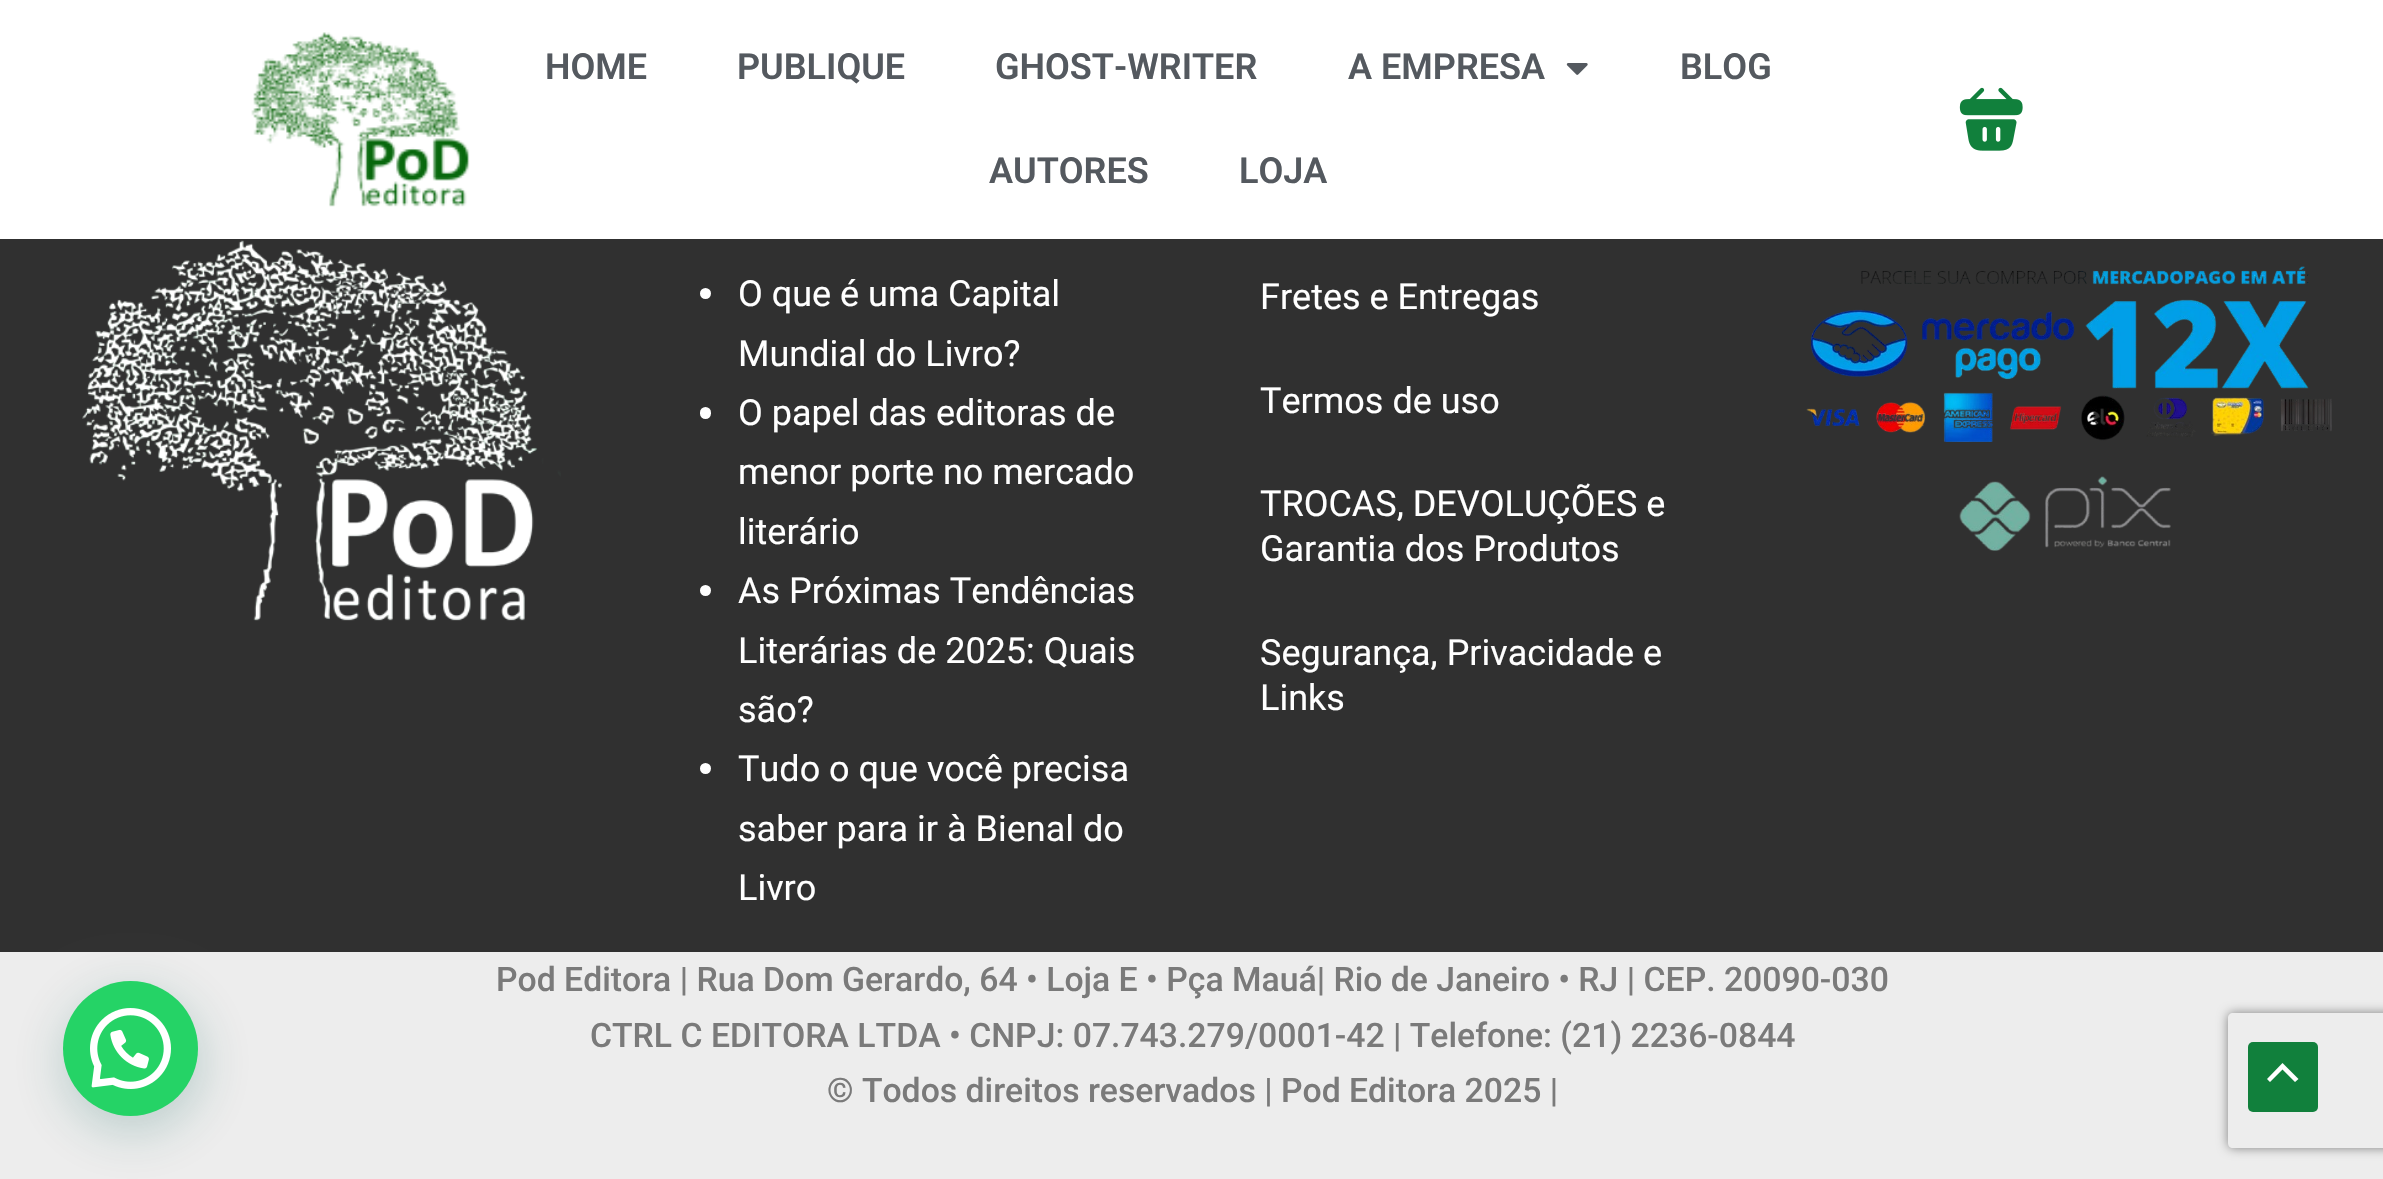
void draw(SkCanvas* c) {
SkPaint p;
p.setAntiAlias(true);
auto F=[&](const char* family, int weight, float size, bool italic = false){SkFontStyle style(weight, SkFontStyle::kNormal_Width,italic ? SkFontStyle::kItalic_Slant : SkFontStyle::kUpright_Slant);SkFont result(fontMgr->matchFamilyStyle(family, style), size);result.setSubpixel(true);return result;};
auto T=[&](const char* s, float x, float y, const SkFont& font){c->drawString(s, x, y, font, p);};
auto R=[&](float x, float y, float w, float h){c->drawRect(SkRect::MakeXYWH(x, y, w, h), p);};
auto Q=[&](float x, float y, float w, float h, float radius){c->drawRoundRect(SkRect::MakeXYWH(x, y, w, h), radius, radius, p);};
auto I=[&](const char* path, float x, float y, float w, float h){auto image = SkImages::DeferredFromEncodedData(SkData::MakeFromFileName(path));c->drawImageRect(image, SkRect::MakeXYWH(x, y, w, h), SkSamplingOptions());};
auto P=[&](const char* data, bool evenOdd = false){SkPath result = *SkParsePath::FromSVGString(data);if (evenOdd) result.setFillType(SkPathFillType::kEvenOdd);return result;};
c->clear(0xff303030);
p.setColor(0xffededed);
R(0,952,2383,227);
p.setColor(0x3d075e54);
p.setMaskFilter(SkMaskFilter::MakeBlur(kNormal_SkBlurStyle, 27));
c->drawRoundRect(SkRect::MakeXYWH(65,995,135,135),67.5,67.5,p);
p.setMaskFilter(nullptr);
p.setColor(0xff25d366);
c->drawCircle(130.5,1048.5,67.5,p);
I("1.png",90,1008,81,81);
p.setColor(0xffffffff);
R(0,0,2383,239);
I("2.png",251,32,219,175);
auto f1 = F("Roboto",600,36);
p.setColor(0xff54595f);
T("HOME",545,79,f1);
T("PUBLIQUE",737,79,f1);
T("GHOST-WRITER",995,79,f1);
T("A EMPRESA",1348,79,f1);
I("3.png",1566,63,22,12);
T("BLOG",1680,79,f1);
T("AUTORES",989,183,f1);
T("LOJA",1239,183,f1);
I("4.png",1959,87,64,64);
I("5.png",82,240,479,381);
p.setColor(0xffffffff);
c->drawCircle(705.5,293.5,5.5,p);
auto f2 = F("Roboto",400,36);
T("O que é uma Capital",738,306,f2);
T("Mundial do Livro?",738,366,f2);
Q(700,407,11,12,5.5);
T("O papel das editoras de",738,425,f2);
T("menor porte no mercado",738,484,f2);
T("literário",738,544,f2);
c->drawCircle(705.5,590.5,5.5,p);
T("As Próximas Tendências",738,603,f2);
T("Literárias de 2025: Quais",738,663,f2);
T("são?",738,722,f2);
c->drawCircle(705.5,768.5,5.5,p);
T("Tudo o que você precisa",738,781,f2);
T("saber para ir à Bienal do",738,841,f2);
T("Livro",738,900,f2);
T("Fretes e Entregas",1260,309,f2);
T("Termos de uso",1260,413,f2);
T("TROCAS, DEVOLUÇÕES e",1260,516,f2);
T("Garantia dos Produtos",1260,561,f2);
T("Segurança, Privacidade e",1260,665,f2);
T("Links",1260,710,f2);
I("6.png",1806,266,526,176);
I("7.png",1959,476,212,75);
auto f3 = F("Roboto",500,33.75);
p.setColor(0xff7a7a7a);
T("Pod Editora | Rua Dom Gerardo, 64 • Loja E • Pça Mauá| Rio de Janeiro • RJ | CEP. 20090-030",496,991,f3);
T("CTRL C EDITORA LTDA • CNPJ: 07.743.279/0001-42 | Telefone: (21) 2236-0844",590,1047,f3);
T("© Todos direitos reservados | Pod Editora 2025 |",827,1102,f3);
p.setColor(0xff11803c);
Q(2248,1042,70,70,5);
p.setColor(0xffffffff);
c->drawPath(P("M2298.5 1079l-16-16l-15.5 16l3 3l12.5-12.5l12.5 12.5z"),p);
c->save();
c->clipPath(P("M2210 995h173v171h-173zm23 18h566c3 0 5 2 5 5v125c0 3-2 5-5 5h-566c-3 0-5-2-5-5v-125c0-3 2-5 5-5z",true),true);
p.setColor(0xff808080);
p.setMaskFilter(SkMaskFilter::MakeBlur(kNormal_SkBlurStyle, 5.5));
c->drawRoundRect(SkRect::MakeXYWH(2228,1013,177,135),5,5,p);
p.setMaskFilter(nullptr);
c->restore();
}
